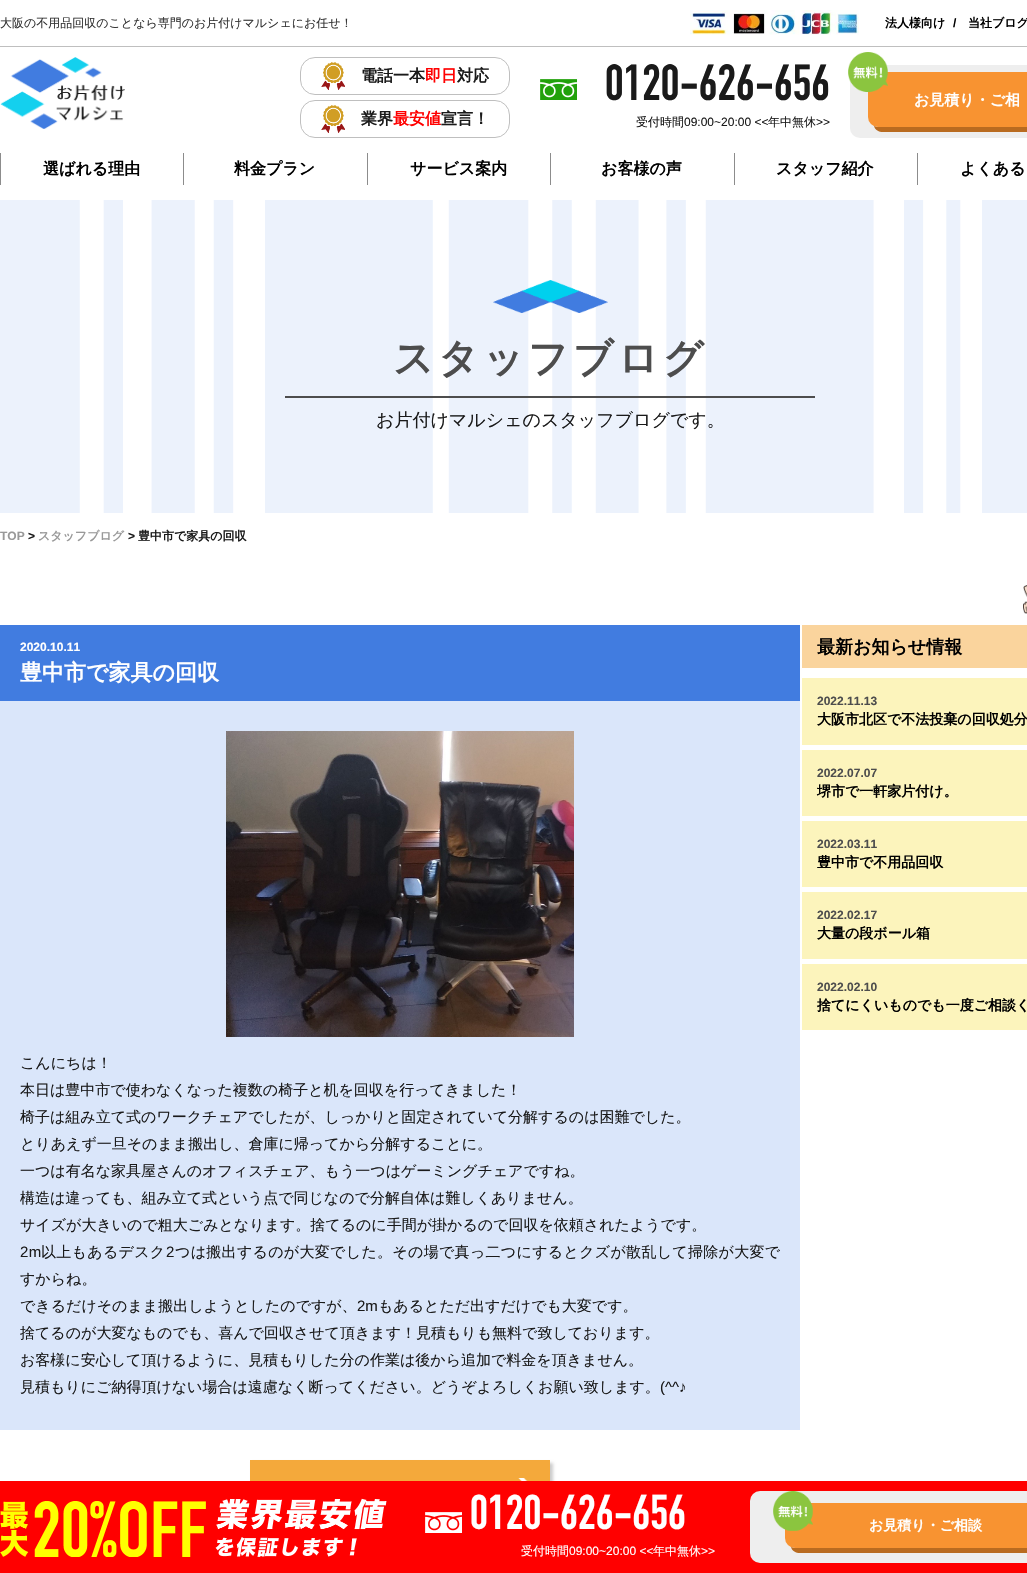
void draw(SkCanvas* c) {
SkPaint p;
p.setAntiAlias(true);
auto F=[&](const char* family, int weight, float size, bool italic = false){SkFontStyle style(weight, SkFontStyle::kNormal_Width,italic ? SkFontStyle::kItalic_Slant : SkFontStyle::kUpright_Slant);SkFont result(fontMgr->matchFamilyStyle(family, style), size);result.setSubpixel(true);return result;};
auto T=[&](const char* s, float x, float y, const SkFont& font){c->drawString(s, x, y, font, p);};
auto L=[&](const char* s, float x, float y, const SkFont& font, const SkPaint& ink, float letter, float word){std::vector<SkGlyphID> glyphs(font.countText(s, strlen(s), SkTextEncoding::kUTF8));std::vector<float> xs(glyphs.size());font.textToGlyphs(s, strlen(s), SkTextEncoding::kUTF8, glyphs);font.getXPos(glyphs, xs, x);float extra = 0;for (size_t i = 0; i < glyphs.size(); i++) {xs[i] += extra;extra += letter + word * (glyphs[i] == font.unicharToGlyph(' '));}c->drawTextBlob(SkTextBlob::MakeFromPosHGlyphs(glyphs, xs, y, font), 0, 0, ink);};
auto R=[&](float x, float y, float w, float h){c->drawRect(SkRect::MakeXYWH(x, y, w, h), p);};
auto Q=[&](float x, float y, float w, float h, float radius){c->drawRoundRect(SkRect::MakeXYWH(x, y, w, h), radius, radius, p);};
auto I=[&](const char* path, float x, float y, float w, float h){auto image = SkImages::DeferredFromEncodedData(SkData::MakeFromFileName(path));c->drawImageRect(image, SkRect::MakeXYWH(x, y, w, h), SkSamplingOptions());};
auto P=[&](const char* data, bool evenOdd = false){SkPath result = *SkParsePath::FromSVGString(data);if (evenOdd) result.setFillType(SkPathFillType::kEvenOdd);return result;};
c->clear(0xffffffff);
p.setColor(0xffbfbfbf);
R(0,46,1027,1);
auto f1 = F("WenQuanYi Zen Hei",500,12);
p.setColor(0xff333333);
T("大阪の不用品回収のことなら専門のお片付けマルシェにお任せ！",0,27,f1);
I("1.png",690,10,169,25);
auto f2 = F("WenQuanYi Zen Hei",700,12);
p.setColor(0xff000000);
T("法人様向け",885,27,f2);
auto f3 = F("Liberation Sans",700,12);
T("/",953,27,f3);
T("当社ブログ",968,27,f2);
I("2.png",0,57,125,72);
I("3.png",321,62,24,28);
p.setStroke(true);
p.setStrokeWidth(1);
p.setColor(0xffbfbfbf);
c->drawRoundRect(SkRect::MakeXYWH(300.5,57.5,209,37),14.5,14.5,p);
auto f4 = F("WenQuanYi Zen Hei",700,16);
p.setStroke(false);
p.setColor(0xff1a1a1a);
T("電話一本",361,81,f4);
p.setColor(0xffff0000);
T("即日",425,81,f4);
p.setColor(0xff1a1a1a);
T("対応",457,81,f4);
I("4.png",321,105,24,28);
p.setStroke(true);
p.setColor(0xffbfbfbf);
c->drawRoundRect(SkRect::MakeXYWH(300.5,100.5,209,37),14.5,14.5,p);
p.setStroke(false);
p.setColor(0xff1a1a1a);
T("業界",361,124,f4);
p.setColor(0xffff0000);
T("最安値",393,124,f4);
p.setColor(0xff1a1a1a);
T("宣言！",441,124,f4);
I("5.png",540,79,37,21);
auto f5 = F("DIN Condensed",700,50);
T("0120-626-656",605,100,f5);
T("受付時間",636,126,f1);
auto f6 = F("Liberation Sans",400,12);
T("09:00~20:00 <<",684,126,f6);
T("年中無休",768,126,f1);
T(">>",816,126,f6);
p.setColor(0xffeeeeee);
Q(850,65,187,73,10);
p.setColor(0xffb96b20);
c->drawPath(P("M874 126c1 4 5 6 9 6h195c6 0 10-4 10-10v-35c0-4-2-8-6-9l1 4v35c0 6-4 10-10 10h-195z"),p);
p.setColor(0xfff89331);
Q(868,72,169,55,10);
I("6.png",848,52,40,40);
auto f7 = F("WenQuanYi Zen Hei",700,15);
p.setColor(0xffffffff);
T("お見積り・ご相",914,105,f7);
p.setColor(0xff8c8c8c);
R(0,153,1,32);
p.setColor(0xff000000);
T("選ばれる理由",43,174,f4);
p.setColor(0xff8c8c8c);
R(183,153,1,32);
p.setColor(0xff000000);
T("料金プラン",234,174,f4);
p.setColor(0xff8c8c8c);
R(367,153,1,32);
p.setColor(0xff000000);
T("サービス案内",410,174,f4);
p.setColor(0xff8c8c8c);
R(550,153,1,32);
p.setColor(0xff000000);
T("お客様の声",601,174,f4);
p.setColor(0xff8c8c8c);
R(734,153,1,32);
p.setColor(0xff000000);
T("スタッフ紹介",776,174,f4);
p.setColor(0xff8c8c8c);
R(917,153,1,32);
p.setColor(0xff000000);
T("よくある",960,174,f4);
I("7.png",0,200,1027,313);
I("8.png",493,280,115,33);
p.setColor(0xff4d4d4d);
R(285,396,530,2);
auto f8 = F("WenQuanYi Zen Hei",700,40);
L("スタッフブログ",393,372,f8,p,4,0);
auto f9 = F("WenQuanYi Zen Hei",500,18);
p.setColor(0xff1a1a1a);
T("お片付けマルシェのスタッフブログです。",376,426,f9);
p.setColor(0xff999999);
T("TOP",0,540,f3);
p.setColor(0xff1a1a1a);
T(">",28,540,f3);
p.setColor(0xff999999);
T("スタッフブログ",38,540,f2);
p.setColor(0xff1a1a1a);
T(">",128,540,f3);
T("豊中市で家具の回収",138,540,f2);
p.setColor(0xff417ce0);
R(0,625,800,76);
p.setColor(0xffffffff);
T("2020.10.11",20,651,f3);
auto f10 = F("WenQuanYi Zen Hei",700,22);
T("豊中市で家具の回収",20,680,f10);
p.setColor(0xffdae6fa);
R(0,701,800,729);
I("9.png",226,731,348,306);
auto f11 = F("WenQuanYi Zen Hei",500,15);
p.setColor(0xff1a1a1a);
T("こんにちは！",20,1068,f11);
T("本日は豊中市で使わなくなった複数の椅子と机を回収を行ってきました！",20,1095,f11);
T("椅子は組み立て式のワークチェアでしたが、しっかりと固定されていて分解するのは困難でした。",20,1122,f11);
T("とりあえず一旦そのまま搬出し、倉庫に帰ってから分解することに。",20,1149,f11);
T("一つは有名な家具屋さんのオフィスチェア、もう一つはゲーミングチェアですね。",20,1176,f11);
T("構造は違っても、組み立て式という点で同じなので分解自体は難しくありません。",20,1203,f11);
T("サイズが大きいので粗大ごみとなります。捨てるのに手間が掛かるので回収を依頼されたようです。",20,1230,f11);
auto f12 = F("Liberation Sans",400,15);
L("2m",20,1257,f12,p,.3,0);
L("以上もあるデスク",41,1257,f11,p,.3,0);
L("2",166,1257,f12,p,.3,0);
L("つは搬出するのが大変でした。その場で真っ二つにするとクズが散乱して掃除が大変で",175,1257,f11,p,.3,0);
T("すからね。",20,1284,f11);
T("できるだけそのまま搬出しようとしたのですが、",20,1311,f11);
T("2m",357,1311,f12);
T("もあるとただ出すだけでも大変です。",378,1311,f11);
T("捨てるのが大変なものでも、喜んで回収させて頂きます！見積もりも無料で致しております。",20,1338,f11);
T("お客様に安心して頂けるように、見積もりした分の作業は後から追加で料金を頂きません。",20,1365,f11);
T("見積もりにご納得頂けない場合は遠慮なく断ってください。どうぞよろしくお願い致します。",20,1392,f11);
T("(^^♪",660,1392,f12);
p.setColor(0xffcccccc);
p.setMaskFilter(SkMaskFilter::MakeBlur(kNormal_SkBlurStyle, 1.5));
c->drawRect(SkRect::MakeXYWH(253,1463,300,50),p);
p.setMaskFilter(nullptr);
p.setColor(0xfff4a93b);
R(250,1460,300,21);
I("10.png",518,1478,10,3);
p.setColor(0xfffad49d);
R(802,625,225,43);
I("11.png",1023,585,4,29);
auto f13 = F("WenQuanYi Zen Hei",700,18);
p.setColor(0xff000000);
T("最新お知らせ情報",817,653,f13);
p.setColor(0xfffcf4bc);
R(802,678,225,67);
p.setColor(0xff4d4d4d);
T("2022.11.13",817,705,f3);
auto f14 = F("WenQuanYi Zen Hei",700,14);
p.setColor(0xff000000);
T("大阪市北区で不法投棄の回収処分",817,724,f14);
p.setColor(0xfffcf4bc);
R(802,750,225,66);
p.setColor(0xff4d4d4d);
T("2022.07.07",817,777,f3);
p.setColor(0xff000000);
T("堺市で一軒家片付け。",817,796,f14);
p.setColor(0xfffcf4bc);
R(802,821,225,66);
p.setColor(0xff4d4d4d);
T("2022.03.11",817,848,f3);
p.setColor(0xff000000);
T("豊中市で不用品回収",817,867,f14);
p.setColor(0xfffcf4bc);
R(802,892,225,67);
p.setColor(0xff4d4d4d);
T("2022.02.17",817,919,f3);
p.setColor(0xff000000);
T("大量の段ボール箱",817,938,f14);
p.setColor(0xfffcf4bc);
R(802,964,225,66);
p.setColor(0xff4d4d4d);
T("2022.02.10",817,991,f3);
p.setColor(0xff000000);
T("捨てにくいものでも一度ご相談く",817,1010,f14);
p.setColor(0xffff0000);
R(0,1481,1027,92);
I("12.png",0,1498,387,59);
I("13.png",425,1512,37,21);
auto f15 = F("DIN Condensed",700,48);
p.setColor(0xffffffff);
T("0120-626-656",470,1529,f15);
T("受付時間",521,1555,f1);
T("09:00~20:00 <<",569,1555,f6);
T("年中無休",653,1555,f1);
T(">>",701,1555,f6);
p.setColor(0xffeeeeee);
Q(750,1491,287,72,10);
p.setColor(0xffb96b20);
c->drawPath(P("M791 1547c1 4 5 6 9 6h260c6 0 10-4 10-10v-25c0-4-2-8-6-9l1 4v25c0 6-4 10-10 10h-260z"),p);
p.setColor(0xfff89331);
Q(785,1503,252,45,10);
I("14.png",773,1491,40,40);
p.setColor(0xffffffff);
T("お見積り・ご相談",869,1530,f14);
}
